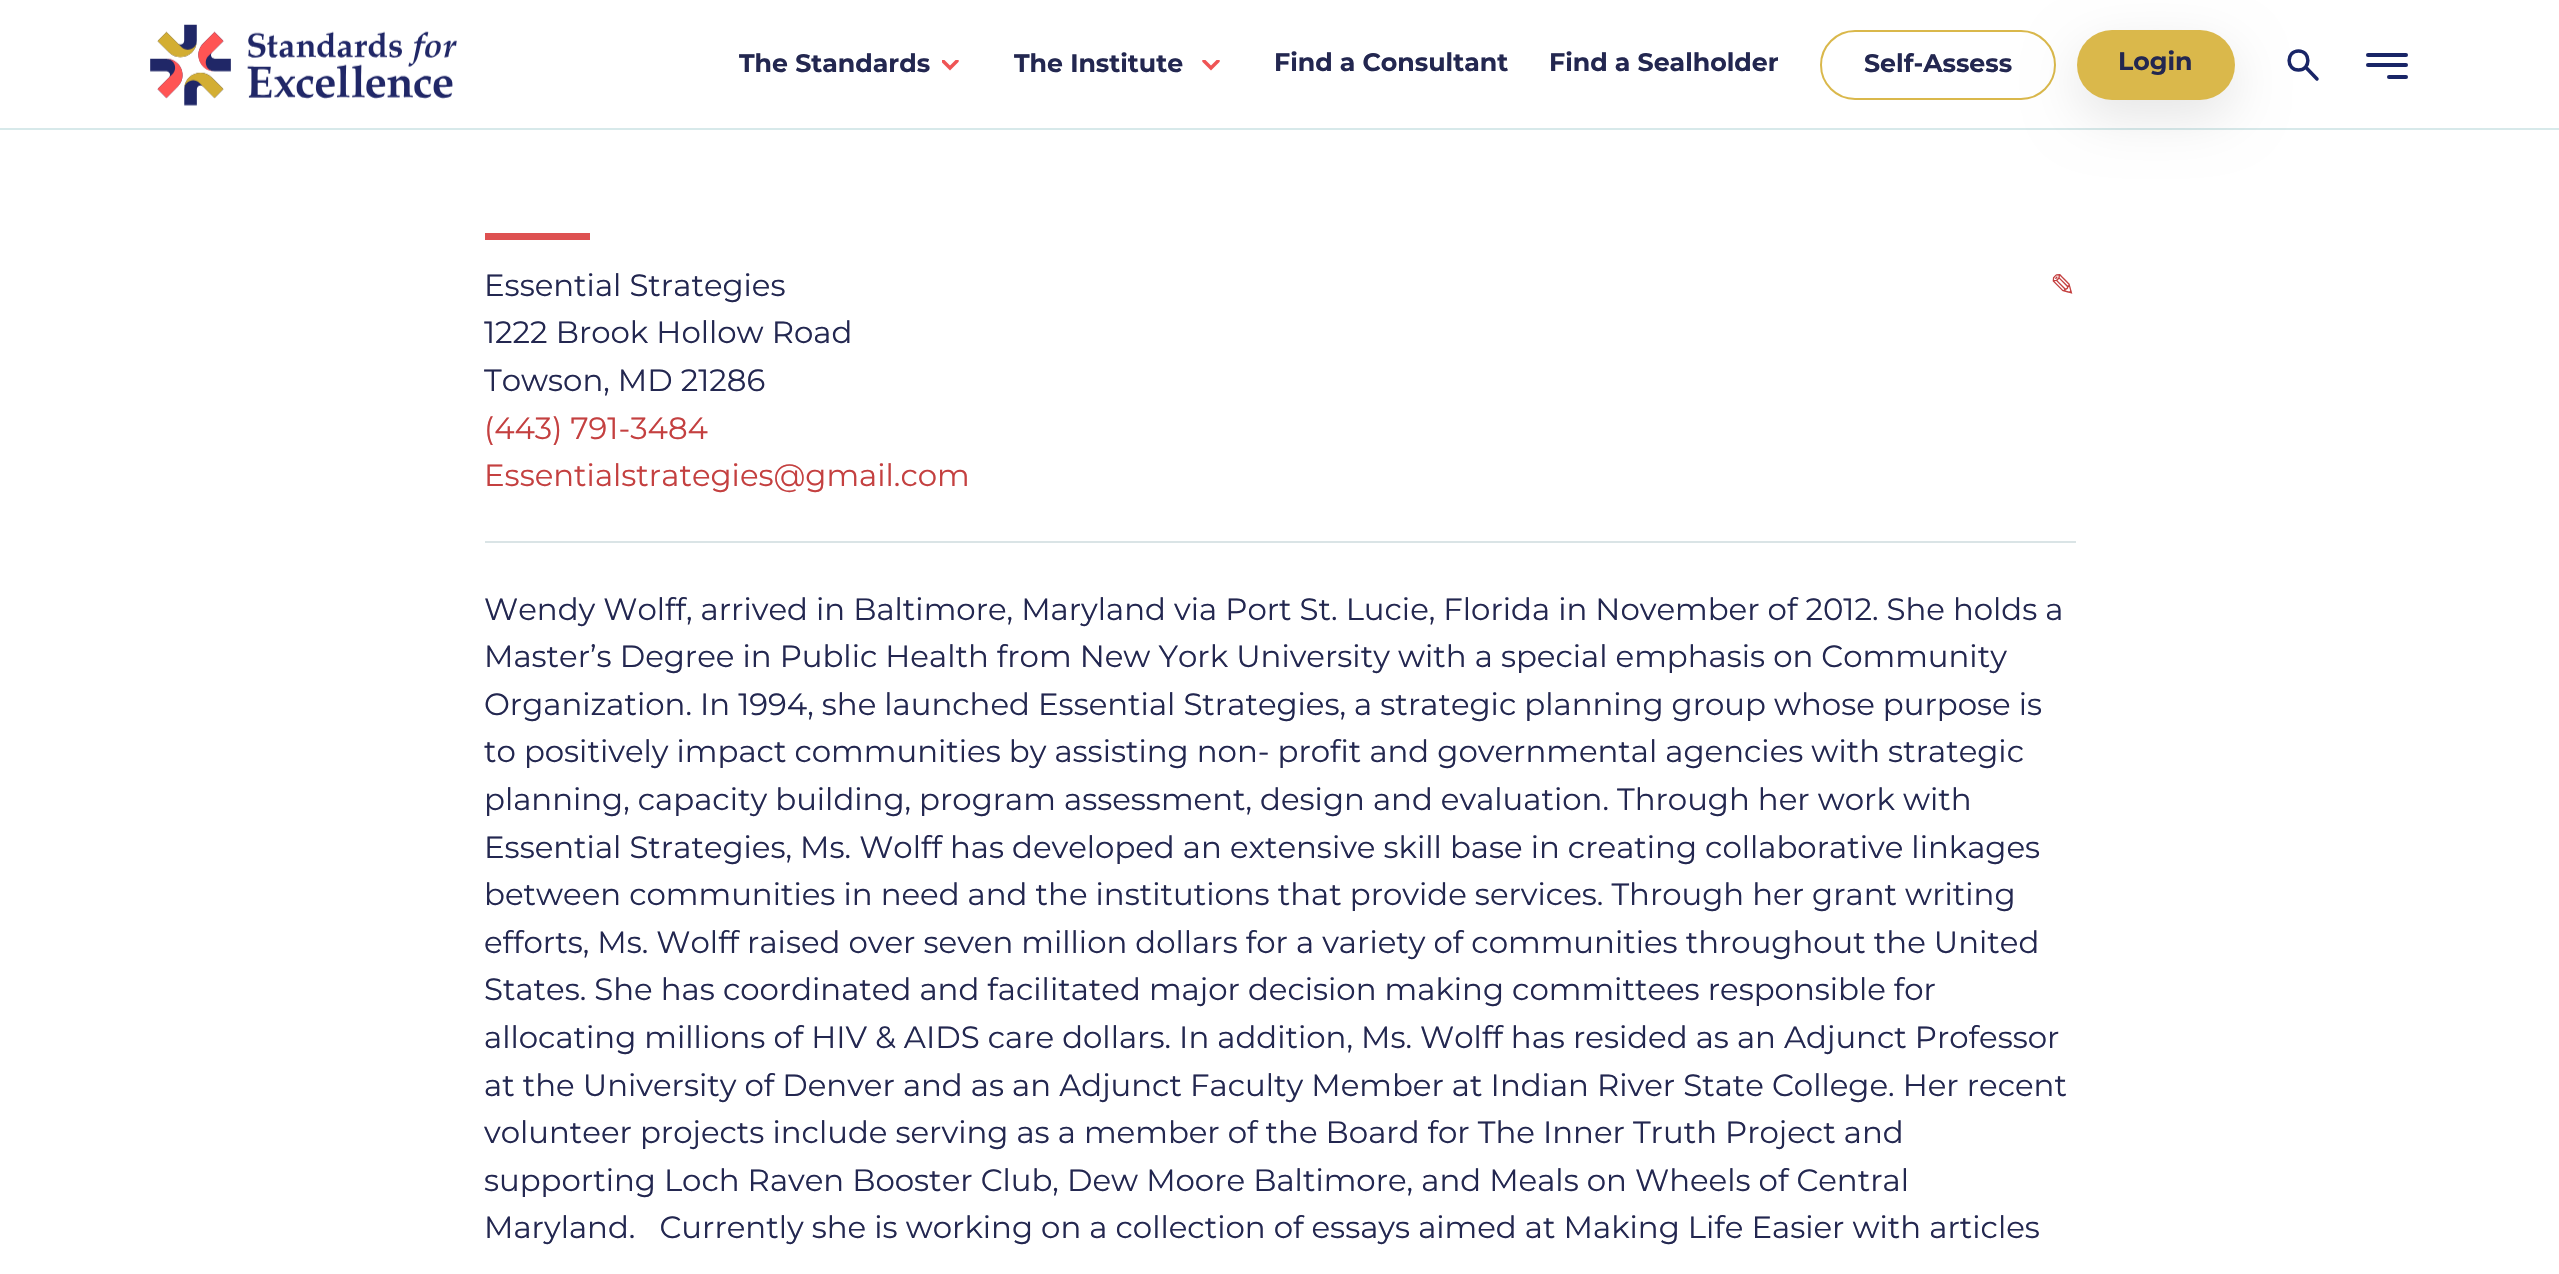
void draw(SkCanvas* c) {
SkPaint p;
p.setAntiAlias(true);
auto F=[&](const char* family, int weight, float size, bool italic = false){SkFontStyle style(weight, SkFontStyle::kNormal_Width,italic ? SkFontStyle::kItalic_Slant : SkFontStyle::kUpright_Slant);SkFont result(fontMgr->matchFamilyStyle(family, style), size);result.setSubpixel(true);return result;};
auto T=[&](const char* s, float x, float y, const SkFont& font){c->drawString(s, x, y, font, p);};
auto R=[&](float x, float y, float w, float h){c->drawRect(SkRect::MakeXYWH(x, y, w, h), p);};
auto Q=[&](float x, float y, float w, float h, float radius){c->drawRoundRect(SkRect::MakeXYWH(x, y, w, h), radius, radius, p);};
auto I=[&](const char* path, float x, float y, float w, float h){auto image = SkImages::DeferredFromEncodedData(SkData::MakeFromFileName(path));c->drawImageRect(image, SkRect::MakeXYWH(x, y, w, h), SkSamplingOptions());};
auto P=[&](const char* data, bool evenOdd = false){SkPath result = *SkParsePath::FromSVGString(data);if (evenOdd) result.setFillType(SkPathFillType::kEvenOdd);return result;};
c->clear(0xffffffff);
I("1.png",150,24,307,82);
auto f1 = F("Montserrat",700,25.25);
p.setColor(0xff232750);
T("The Standards",739,72,f1);
c->save();
c->clipRect(SkRect::MakeXYWH(942,60,17,12));
p.setStroke(true);
p.setStrokeWidth(3.5);
p.setStrokeCap(SkPaint::kRound_Cap);
p.setColor(0xffef5455);
c->drawPath(P("M943 61l7 7l7-7"),p);
c->restore();
p.setStroke(false);
p.setColor(0xff232750);
T("The Institute",1014,72,f1);
c->save();
c->clipRect(SkRect::MakeXYWH(1202,60,18,12));
p.setStroke(true);
p.setColor(0xffef5455);
c->drawPath(P("M1204 61l7 7l7-7"),p);
c->restore();
p.setStroke(false);
p.setColor(0xff232750);
T("Find a Consultant",1274,71,f1);
T("Find a Sealholder",1549,71,f1);
p.setStroke(true);
p.setStrokeWidth(2);
p.setStrokeCap(SkPaint::kButt_Cap);
p.setColor(0xffdab84b);
c->drawRoundRect(SkRect::MakeXYWH(1821,31,234,68),34,34,p);
p.setStroke(false);
p.setColor(0xff232750);
T("Self-Assess",1864,72,f1);
p.setColor(0xffd7e9ea);
R(0,128,2559,2);
p.setColor(0x1a000000);
p.setMaskFilter(SkMaskFilter::MakeBlur(kNormal_SkBlurStyle, 26));
c->drawRoundRect(SkRect::MakeXYWH(2077,47,158,70),35,35,p);
p.setMaskFilter(nullptr);
p.setColor(0xffdab84b);
Q(2077,30,158,70,35);
p.setColor(0xff232750);
T("Login",2118,70,f1);
p.setStroke(true);
p.setStrokeWidth(3.5);
p.setStrokeCap(SkPaint::kRound_Cap);
p.setStrokeJoin(SkPaint::kRound_Join);
p.setColor(0xff192567);
c->drawPath(P("M2298.5 70c12.5 0 12.5-19 0-19c-12.5 0-12.5 19 0 19zm7-3l11.5 12"),p);
p.setStroke(false);
Q(2366,53,42,4,2);
Q(2366,63,42,4,2);
Q(2387,75,21,4,2);
p.setColor(0xffde5151);
R(485,233,105,7);
auto f2 = F("Montserrat",400,30.8);
p.setColor(0xff232750);
T("Essential Strategies",484,296,f2);
auto f3 = F("DejaVu Sans",400,30.8);
p.setColor(0xffc44040);
T("✎",2050,296,f3);
p.setColor(0xff232750);
T("1222 Brook Hollow Road",484,343,f2);
T("Towson, MD 21286",484,391,f2);
p.setColor(0xffc44040);
T("(443) 791-3484",484,439,f2);
T("Essentialstrategies@gmail.com",484,486,f2);
p.setColor(0xffdae4e6);
R(485,541,1591,2);
p.setColor(0xff232750);
T("Wendy Wolff, arrived in Baltimore, Maryland via Port St. Lucie, Florida in November of 2012. She holds a",484,620,f2);
T("Master’s Degree in Public Health from New York University with a special emphasis on Community",484,667,f2);
T("Organization. In 1994, she launched Essential Strategies, a strategic planning group whose purpose is",484,715,f2);
T("to positively impact communities by assisting non- profit and governmental agencies with strategic",484,762,f2);
T("planning, capacity building, program assessment, design and evaluation. Through her work with",484,810,f2);
T("Essential Strategies, Ms. Wolff has developed an extensive skill base in creating collaborative linkages",484,858,f2);
T("between communities in need and the institutions that provide services. Through her grant writing",484,905,f2);
T("efforts, Ms. Wolff raised over seven million dollars for a variety of communities throughout the United",484,953,f2);
T("States. She has coordinated and facilitated major decision making committees responsible for",484,1000,f2);
T("allocating millions of HIV & AIDS care dollars. In addition, Ms. Wolff has resided as an Adjunct Professor",484,1048,f2);
T("at the University of Denver and as an Adjunct Faculty Member at Indian River State College. Her recent",484,1096,f2);
T("volunteer projects include serving as a member of the Board for The Inner Truth Project and",484,1143,f2);
T("supporting Loch Raven Booster Club, Dew Moore Baltimore, and Meals on Wheels of Central",484,1191,f2);
T("Maryland.   Currently she is working on a collection of essays aimed at Making Life Easier with articles",484,1238,f2);
}
